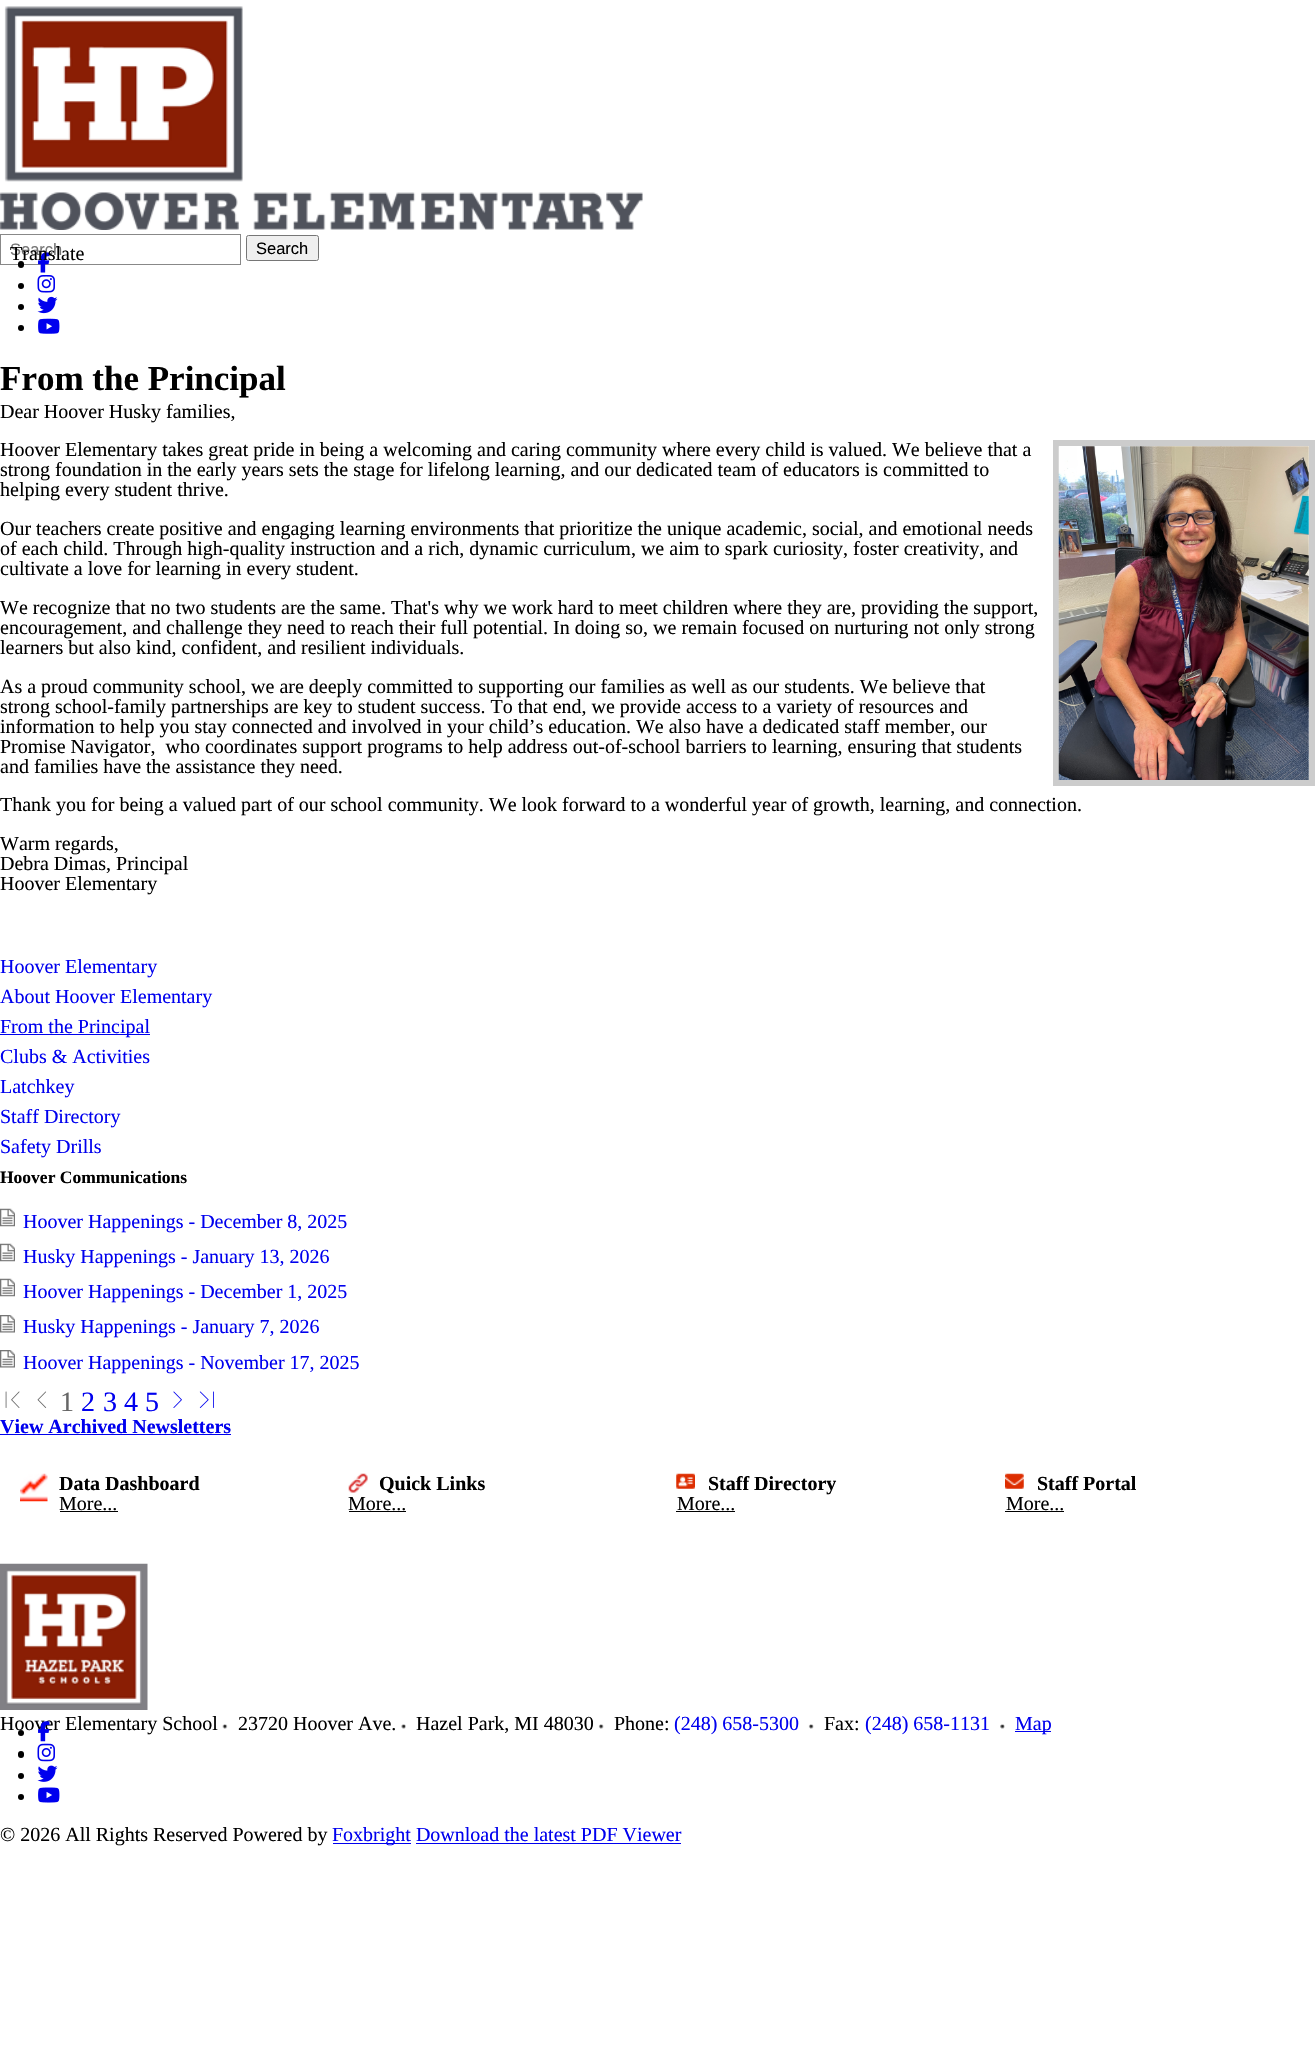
void draw(SkCanvas* c) {
SkPaint p;
p.setAntiAlias(true);
auto F=[&](const char* family, int weight, float size, bool italic = false){SkFontStyle style(weight, SkFontStyle::kNormal_Width,italic ? SkFontStyle::kItalic_Slant : SkFontStyle::kUpright_Slant);SkFont result(fontMgr->matchFamilyStyle(family, style), size);result.setSubpixel(true);return result;};
auto T=[&](const char* s, float x, float y, const SkFont& font){c->drawString(s, x, y, font, p);};
auto R=[&](float x, float y, float w, float h){c->drawRect(SkRect::MakeXYWH(x, y, w, h), p);};
auto Q=[&](float x, float y, float w, float h, float radius){c->drawRoundRect(SkRect::MakeXYWH(x, y, w, h), radius, radius, p);};
auto I=[&](const char* path, float x, float y, float w, float h){auto image = SkImages::DeferredFromEncodedData(SkData::MakeFromFileName(path));c->drawImageRect(image, SkRect::MakeXYWH(x, y, w, h), SkSamplingOptions());};
c->clear(0xffffffff);
I("1.png",4,6,239,176);
I("2.png",0,192,643,38);
p.setStroke(true);
p.setStrokeWidth(1);
p.setColor(0xff888888);
c->drawRect(SkRect::MakeXYWH(.5,234.5,240,30),p);
auto f1 = F("Liberation Sans",400,16.5);
p.setStroke(false);
p.setColor(0xff757575);
T("Search",10,255,f1);
p.setColor(0xffefefef);
c->drawRoundRect(SkRect::MakeXYWH(246.5,235.5,72,25),2,2,p);
p.setStroke(true);
p.setColor(0xff767676);
c->drawRoundRect(SkRect::MakeXYWH(246.5,235.5,72,25),2,2,p);
p.setStroke(false);
p.setColor(0xff000000);
T("Search",256,254,f1);
I("3.png",38,252,12,21);
auto f2 = F("Liberation Serif",400,20);
T("Translate",10,260,f2);
Q(18,261,6,7,3);
c->drawCircle(21,286,3,p);
I("4.png",37,275,18,18);
c->drawCircle(21,307,3,p);
I("5.png",37,296,21,18);
c->drawCircle(21,328,3,p);
I("6.png",38,318,22,16);
auto f3 = F("Liberation Serif",700,35);
T("From the Principal",0,390,f3);
T("Dear Hoover Husky families,",0,418,f2);
T("Hoover Elementary takes great pride in being a welcoming and caring community where every child is valued. We believe that a",0,456,f2);
T("strong foundation in the early years sets the stage for lifelong learning, and our dedicated team of educators is committed to",0,476,f2);
T("helping every student thrive.",0,496,f2);
p.setStroke(true);
p.setStrokeWidth(6);
p.setColor(0xffcccccc);
c->drawRect(SkRect::MakeXYWH(1056,443,256,340),p);
I("7.png",1058,446,251,334);
p.setStroke(false);
p.setColor(0xff000000);
T("Our teachers create positive and engaging learning environments that prioritize the unique academic, social, and emotional needs",0,535,f2);
T("of each child. Through high-quality instruction and a rich, dynamic curriculum, we aim to spark curiosity, foster creativity, and",0,555,f2);
T("cultivate a love for learning in every student.",0,575,f2);
T("We recognize that no two students are the same. That's why we work hard to meet children where they are, providing the support,",0,614,f2);
T("encouragement, and challenge they need to reach their full potential. In doing so, we remain focused on nurturing not only strong",0,634,f2);
T("learners but also kind, confident, and resilient individuals.",0,654,f2);
T("As a proud community school, we are deeply committed to supporting our families as well as our students. We believe that",0,693,f2);
T("strong school-family partnerships are key to student success. To that end, we provide access to a variety of resources and",0,713,f2);
T("information to help you stay connected and involved in your child’s education. We also have a dedicated staff member, our",0,733,f2);
T("Promise Navigator,  who coordinates support programs to help address out-of-school barriers to learning, ensuring that students",0,753,f2);
T("and families have the assistance they need.",0,773,f2);
T("Thank you for being a valued part of our school community. We look forward to a wonderful year of growth, learning, and connection.",0,811,f2);
T("Warm regards,",0,850,f2);
T("Debra Dimas, Principal",0,870,f2);
T("Hoover Elementary",0,890,f2);
p.setColor(0xff0000ee);
T("Hoover Elementary",0,973,f2);
T("About Hoover Elementary",0,1003,f2);
R(0,1034,150,1);
T("From the Principal",0,1033,f2);
T("Clubs & Activities",0,1063,f2);
T("Latchkey",0,1093,f2);
T("Staff Directory",0,1123,f2);
T("Safety Drills",0,1153,f2);
auto f4 = F("Liberation Serif",700,17.5);
p.setColor(0xff000000);
T("Hoover Communications",0,1183,f4);
I("8.png",0,1208,15,19);
p.setColor(0xff0000ee);
T("Hoover Happenings - December 8, 2025",23,1228,f2);
I("8.png",0,1243,15,19);
T("Husky Happenings - January 13, 2026",23,1263,f2);
I("8.png",0,1278,15,19);
T("Hoover Happenings - December 1, 2025",23,1298,f2);
I("9.png",0,1315,15,18);
T("Husky Happenings - January 7, 2026",23,1333,f2);
I("9.png",0,1350,15,18);
T("Hoover Happenings - November 17, 2025",23,1369,f2);
I("10.png",5,1391,15,17);
I("11.png",37,1391,10,17);
auto f5 = F("Liberation Serif",400,28);
p.setColor(0xff666666);
T("1",60,1411,f5);
p.setColor(0xff0000ee);
T("2",81,1411,f5);
T("3",103,1411,f5);
T("4",124,1411,f5);
T("5",145,1411,f5);
I("12.png",173,1391,9,17);
I("13.png",199,1391,15,17);
auto f6 = F("Liberation Serif",700,20);
T("View Archived Newsletters",0,1433,f6);
R(0,1434,231,1);
I("14.png",20,1473,28,29);
p.setColor(0xff000000);
T("Data Dashboard",59,1490,f6);
T("More...",59,1510,f2);
R(60,1511,58,1);
I("15.png",348,1473,20,20);
T("Quick Links",379,1490,f6);
T("More...",348,1510,f2);
R(349,1511,57,1);
I("16.png",676,1473,19,16);
T("Staff Directory",708,1490,f6);
T("More...",677,1510,f2);
R(676,1511,59,1);
I("17.png",1005,1473,19,16);
T("Staff Portal",1037,1490,f6);
T("More...",1006,1510,f2);
R(1005,1511,59,1);
I("18.png",0,1563,148,147);
T("Hoover Elementary School",0,1730,f2);
I("19.png",222,1724,6,5);
T("23720 Hoover Ave.",238,1730,f2);
I("20.png",401,1724,5,5);
T("Hazel Park, MI 48030",416,1730,f2);
I("21.png",598,1724,6,5);
T("Phone:",614,1730,f2);
p.setColor(0xff0000ee);
T("(248) 658-5300",674,1730,f2);
I("22.png",808,1724,6,5);
p.setColor(0xff000000);
T("Fax:",824,1730,f2);
p.setColor(0xff0000ee);
T("(248) 658-1131",865,1730,f2);
I("23.png",1000,1724,5,5);
R(1015,1731,36,1);
T("Map",1015,1730,f2);
p.setColor(0xff000000);
c->drawCircle(21,1733,3,p);
I("24.png",38,1721,12,21);
Q(18,1751,6,7,3);
I("25.png",37,1743,18,19);
c->drawCircle(21,1776,3,p);
I("26.png",37,1765,21,17);
c->drawCircle(21,1797,3,p);
I("27.png",38,1787,22,16);
T("© 2026 All Rights Reserved Powered by",0,1841,f2);
p.setColor(0xff0000ee);
R(333,1843,78,1);
T("Foxbright Download the latest PDF Viewer",332,1841,f2);
R(416,1843,265,1);
}
